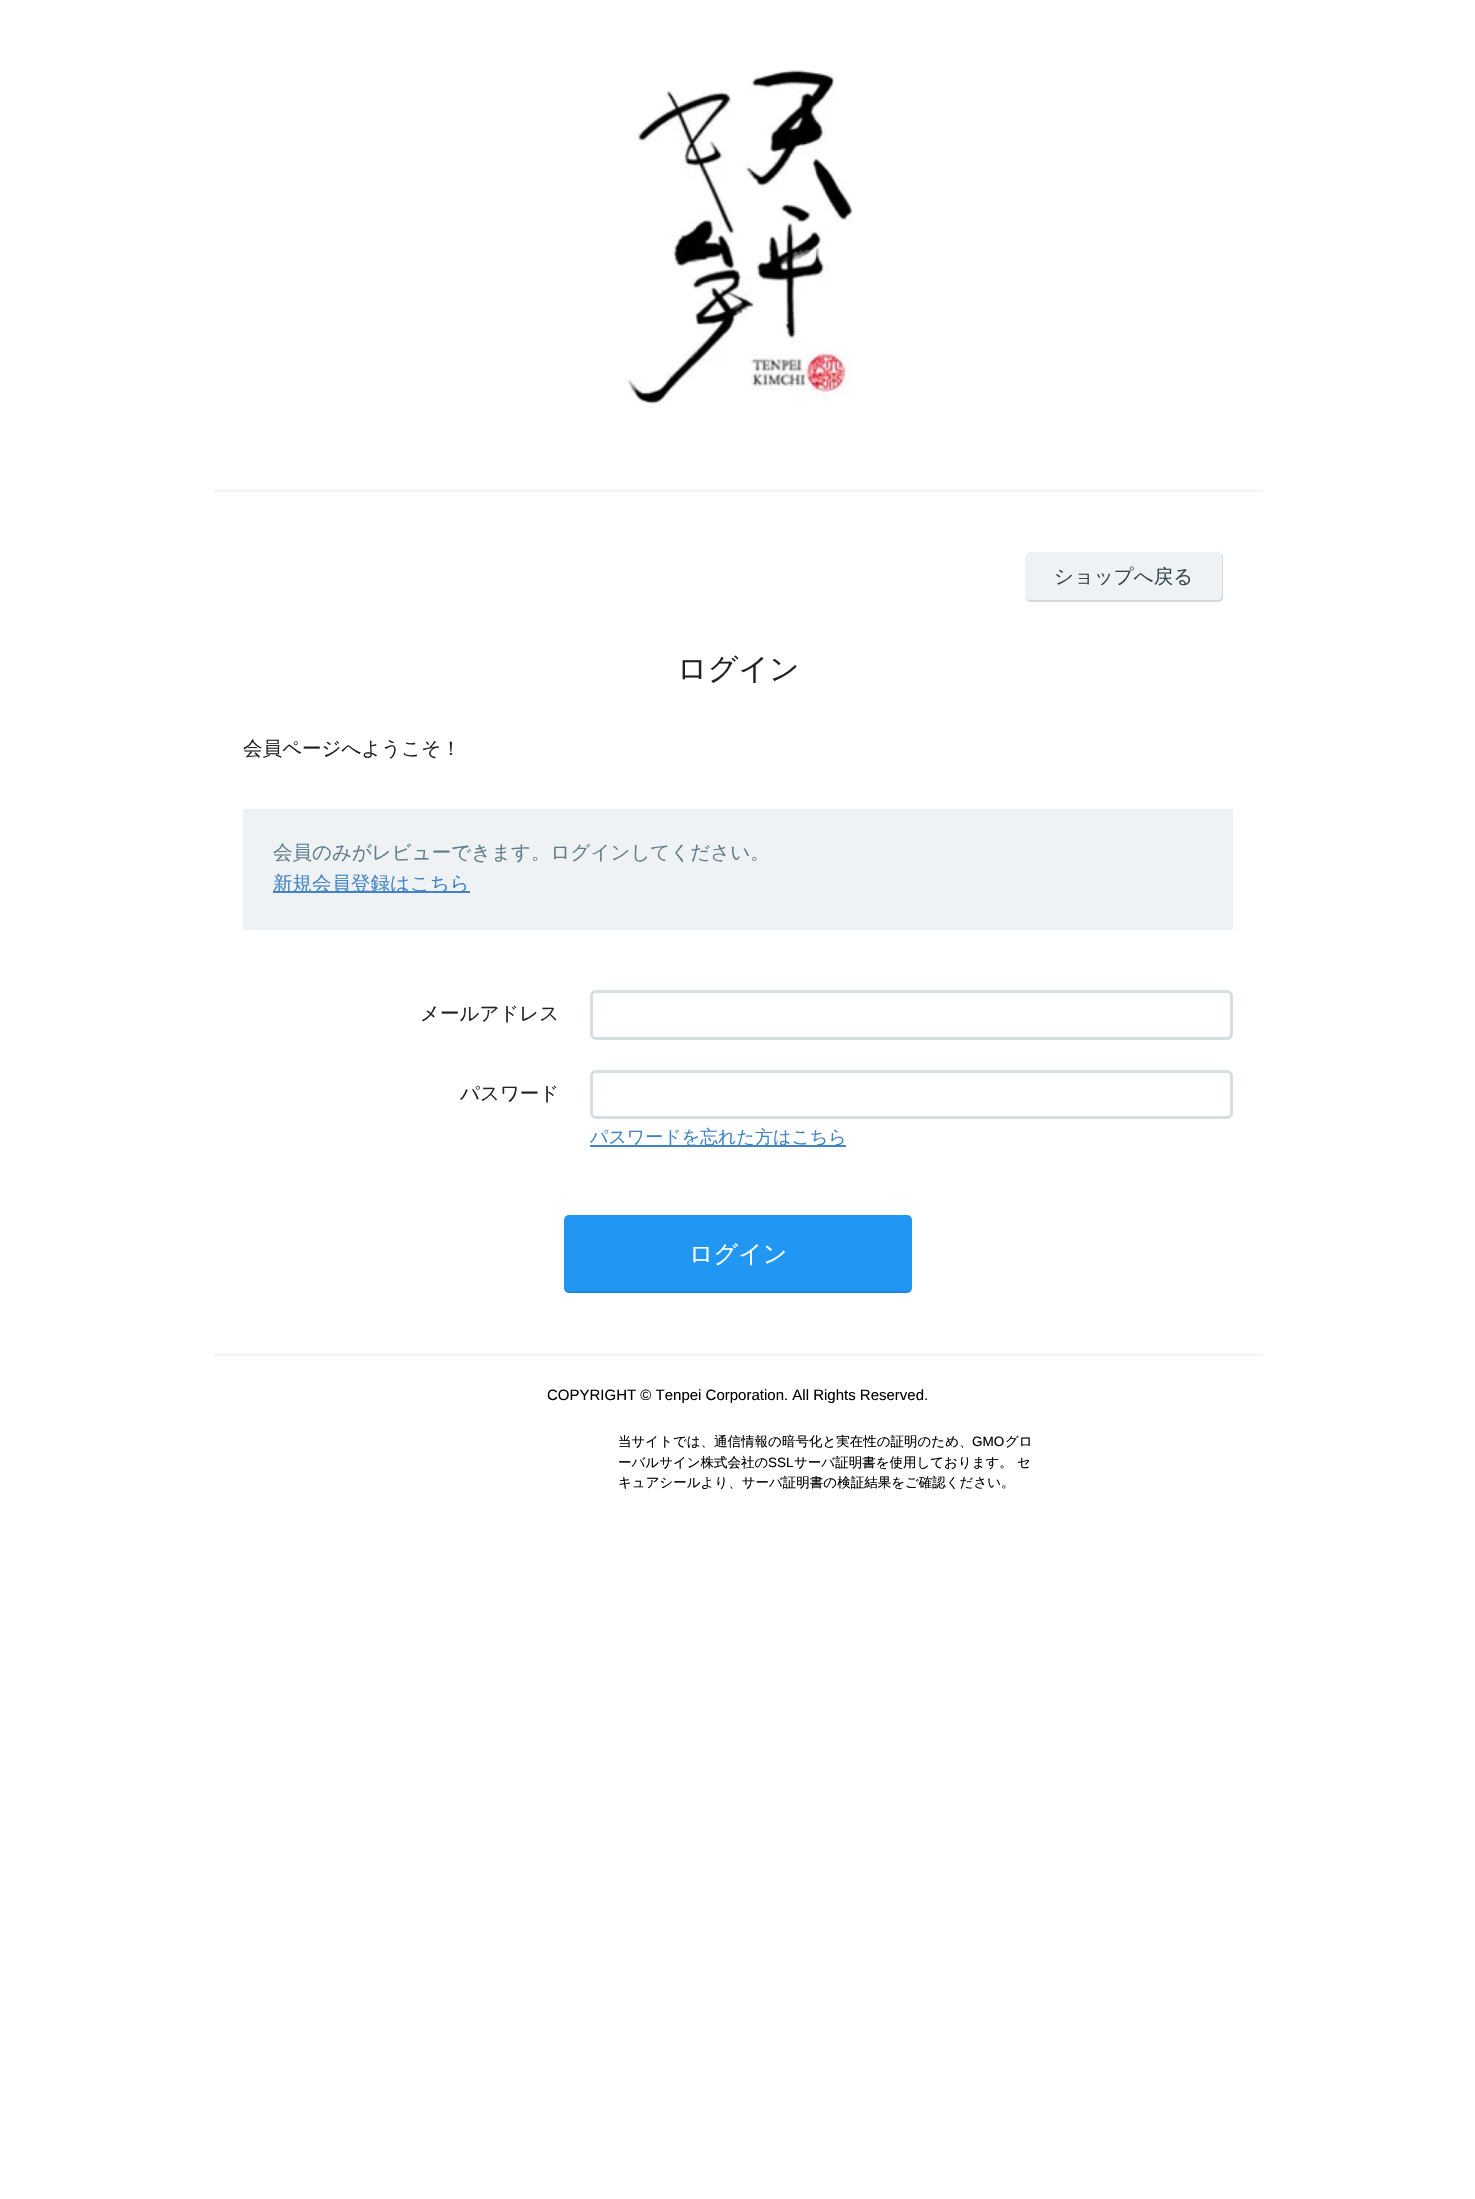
void draw(SkCanvas* c) {
SkPaint p;
p.setAntiAlias(true);
auto F=[&](const char* family, int weight, float size, bool italic = false){SkFontStyle style(weight, SkFontStyle::kNormal_Width,italic ? SkFontStyle::kItalic_Slant : SkFontStyle::kUpright_Slant);SkFont result(fontMgr->matchFamilyStyle(family, style), size);result.setSubpixel(true);return result;};
auto T=[&](const char* s, float x, float y, const SkFont& font){c->drawString(s, x, y, font, p);};
auto R=[&](float x, float y, float w, float h){c->drawRect(SkRect::MakeXYWH(x, y, w, h), p);};
auto Q=[&](float x, float y, float w, float h, float radius){c->drawRoundRect(SkRect::MakeXYWH(x, y, w, h), radius, radius, p);};
auto I=[&](const char* path, float x, float y, float w, float h){auto image = SkImages::DeferredFromEncodedData(SkData::MakeFromFileName(path));c->drawImageRect(image, SkRect::MakeXYWH(x, y, w, h), SkSamplingOptions());};
auto P=[&](const char* data, bool evenOdd = false){SkPath result = *SkParsePath::FromSVGString(data);if (evenOdd) result.setFillType(SkPathFillType::kEvenOdd);return result;};
c->clear(0xffffffff);
I("1.png",624,69,229,339);
p.setColor(0xfff6f6f6);
R(213,489,1050,3);
R(213,1353,1050,3);
p.setColor(0xffeff2f4);
Q(1025,552,198,50,5);
p.setColor(0x1a000000);
c->drawPath(P("M1025 598c1 2 3 4 5 4h188c3 0 5-2 5-5v-40c0-1 0-2-1-3v41c0 3-2 5-4 5h-189c-1 0-3-1-4-2z"),p);
auto f1 = F("WenQuanYi Zen Hei",500,19.5);
p.setColor(0xff35454c);
T("ショップへ戻る",1054,583,f1);
auto f2 = F("WenQuanYi Zen Hei",500,30);
p.setColor(0xff222222);
T("ログイン",677,679,f2);
T("会員ページへようこそ！",243,755,f1);
p.setColor(0xffeff2f4);
R(243,809,990,121);
p.setColor(0xff607d8b);
T("会員のみがレビューできます。ログインしてください。",273,859,f1);
p.setColor(0xff4183c4);
R(273,891,197,2);
T("新規会員登録はこちら",273,890,f1);
p.setColor(0xff222222);
T("メールアドレス",420,1020,f1);
p.setStroke(true);
p.setStrokeWidth(3);
p.setColor(0xffd7dee2);
c->drawRoundRect(SkRect::MakeXYWH(591.5,991.5,640,47),4.5,4.5,p);
p.setStroke(false);
p.setColor(0xff222222);
T("パスワード",460,1100,f1);
p.setStroke(true);
p.setColor(0xffd7dee2);
c->drawRoundRect(SkRect::MakeXYWH(591.5,1071.5,640,46),4.5,4.5,p);
p.setStroke(false);
p.setColor(0xff4183c4);
R(590,1145,256,2);
auto f3 = F("WenQuanYi Zen Hei",500,18);
T("パスワードを忘れた方はこちら",590,1143,f3);
p.setColor(0xff2196f3);
Q(564,1215,348,78,5);
p.setColor(0x1a000000);
c->drawPath(P("M564 1286c0 3 1 7 5 7h338c4 0 5-4 5-7c0 3-2 5-4 5h-340c-2 0-4-2-4-5z"),p);
auto f4 = F("WenQuanYi Zen Hei",500,24);
p.setColor(0xffffffff);
T("ログイン",689,1262,f4);
auto f5 = F("Liberation Sans",400,15);
p.setColor(0xff000000);
T("COPYRIGHT © Tenpei Corporation. All Rights Reserved.",547,1400,f5);
auto f6 = F("WenQuanYi Zen Hei",500,13.5);
T("当サイトでは、通信情報の暗号化と実在性の証明のため、",618,1446,f6);
auto f7 = F("Liberation Sans",400,13.5);
T("GMO",972,1446,f7);
T("グロ",1005,1446,f6);
T("ーバルサイン株式会社の",618,1467,f6);
T("SSL",768,1467,f7);
T("サーバ証明書を使用しております。 セ",794,1467,f6);
T("キュアシールより、サーバ証明書の検証結果をご確認ください。",618,1487,f6);
}
